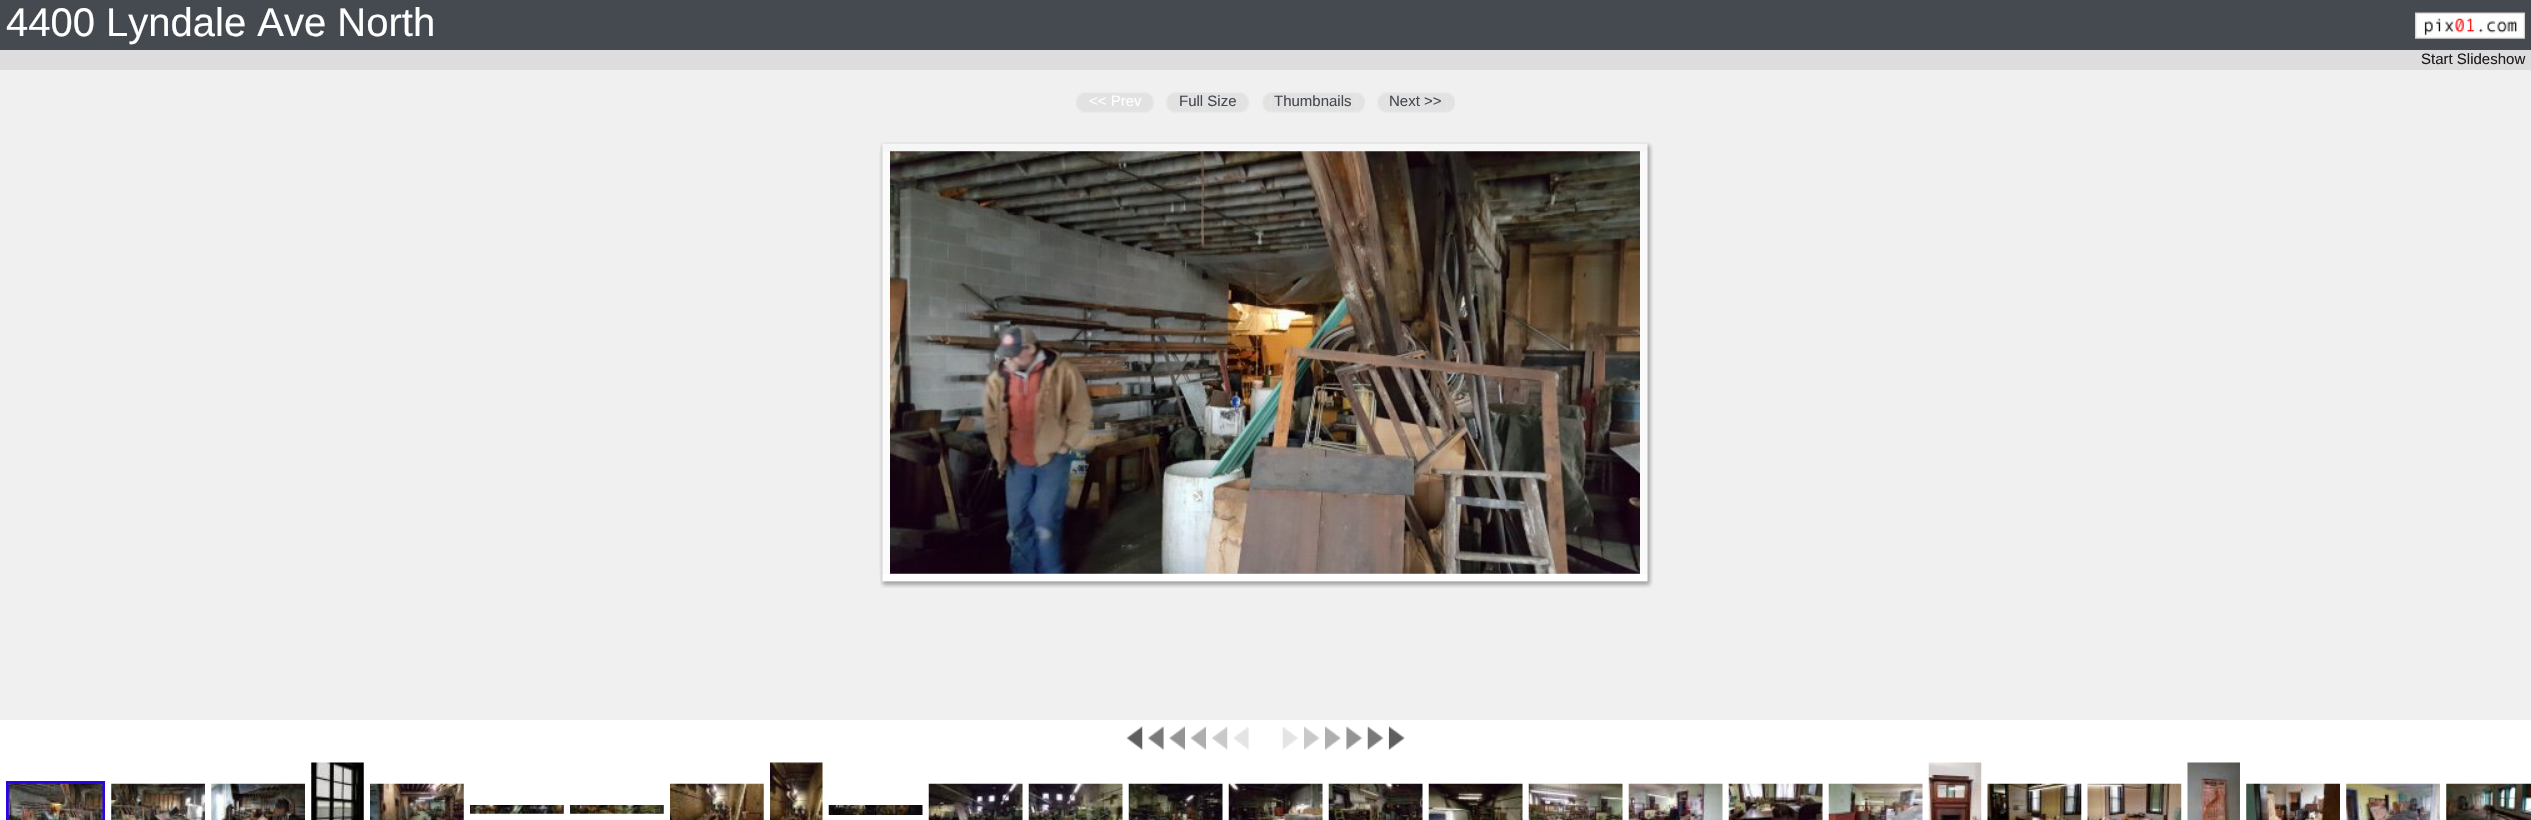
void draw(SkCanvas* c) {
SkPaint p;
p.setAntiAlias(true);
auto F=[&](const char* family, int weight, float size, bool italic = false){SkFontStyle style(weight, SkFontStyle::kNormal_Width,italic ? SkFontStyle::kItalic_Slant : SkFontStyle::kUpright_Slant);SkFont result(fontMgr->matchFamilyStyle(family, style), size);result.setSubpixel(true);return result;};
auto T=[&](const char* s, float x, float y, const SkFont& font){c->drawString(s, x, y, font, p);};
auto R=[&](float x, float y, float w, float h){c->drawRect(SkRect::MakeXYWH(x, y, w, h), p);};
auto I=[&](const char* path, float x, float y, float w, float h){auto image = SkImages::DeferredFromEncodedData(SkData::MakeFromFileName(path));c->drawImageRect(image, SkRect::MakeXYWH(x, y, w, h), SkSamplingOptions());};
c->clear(0xfff0f0f0);
p.setColor(0xff454950);
R(0,0,2531,50);
auto f1 = F("Liberation Sans",400,40);
p.setColor(0xffffffff);
T("4400 Lyndale Ave North",6,36,f1);
I("1.png",2415,12,110,27);
p.setColor(0xffdddddd);
R(0,50,2531,20);
auto f2 = F("Liberation Sans",400,15);
p.setColor(0xff1c1c1c);
T("Start Slideshow",2421,64,f2);
I("2.png",1076,92,9,21);
I("3.png",1085,92,60,21);
p.setColor(0xffffffff);
T("<< Prev",1089,106,f2);
I("4.png",1145,92,9,21);
I("2.png",1166,92,9,21);
I("5.png",1175,92,65,21);
p.setColor(0xff454950);
T("Full Size",1179,106,f2);
I("6.png",1240,92,9,21);
I("7.png",1262,92,9,21);
I("8.png",1271,92,85,21);
T("Thumbnails",1274,106,f2);
I("9.png",1356,92,9,21);
I("7.png",1377,92,9,21);
I("10.png",1386,92,60,21);
T("Next >>",1389,106,f2);
I("9.png",1446,92,9,21);
I("11.png",880,142,10,10);
I("12.png",890,142,750,9);
I("13.png",1640,142,13,10);
I("14.png",879,151,11,423);
I("15.png",890,151,750,423);
I("16.png",1640,151,13,423);
I("17.png",880,573,10,15);
I("18.png",890,574,750,14);
I("19.png",1640,573,13,15);
p.setColor(0xffffffff);
R(0,720,2531,100);
I("20.png",1126,726,17,24);
I("21.png",1147,726,17,24);
I("22.png",1169,726,16,24);
I("23.png",1190,726,16,24);
I("24.png",1212,726,16,24);
I("25.png",1233,727,16,23);
I("26.png",1282,727,16,23);
I("27.png",1304,726,16,24);
I("28.png",1325,726,16,24);
I("29.png",1346,726,17,24);
I("30.png",1367,726,17,24);
I("31.png",1388,726,17,24);
p.setStroke(true);
p.setStrokeWidth(3);
p.setColor(0xff2c03e9);
c->drawRect(SkRect::MakeXYWH(7.5,782.5,96,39),p);
I("32.png",8,783,95,37);
I("33.png",111,783,94,37);
I("34.png",211,783,94,37);
I("35.png",311,762,53,58);
I("36.png",370,783,94,37);
I("37.png",470,805,94,9);
I("38.png",570,805,94,9);
I("39.png",670,783,94,37);
I("40.png",770,762,53,58);
I("41.png",828,805,95,10);
I("42.png",928,783,95,37);
I("43.png",1028,783,95,37);
I("44.png",1128,783,95,37);
I("45.png",1228,783,95,37);
I("46.png",1328,783,95,37);
I("47.png",1428,783,95,37);
I("48.png",1528,783,95,37);
I("49.png",1628,783,95,37);
I("50.png",1728,783,95,37);
I("51.png",1828,783,95,37);
I("52.png",1928,762,54,58);
I("53.png",1987,783,95,37);
I("54.png",2087,783,95,37);
I("55.png",2187,762,53,58);
I("56.png",2246,783,94,37);
I("57.png",2346,783,94,37);
I("58.png",2446,783,85,37);
}
